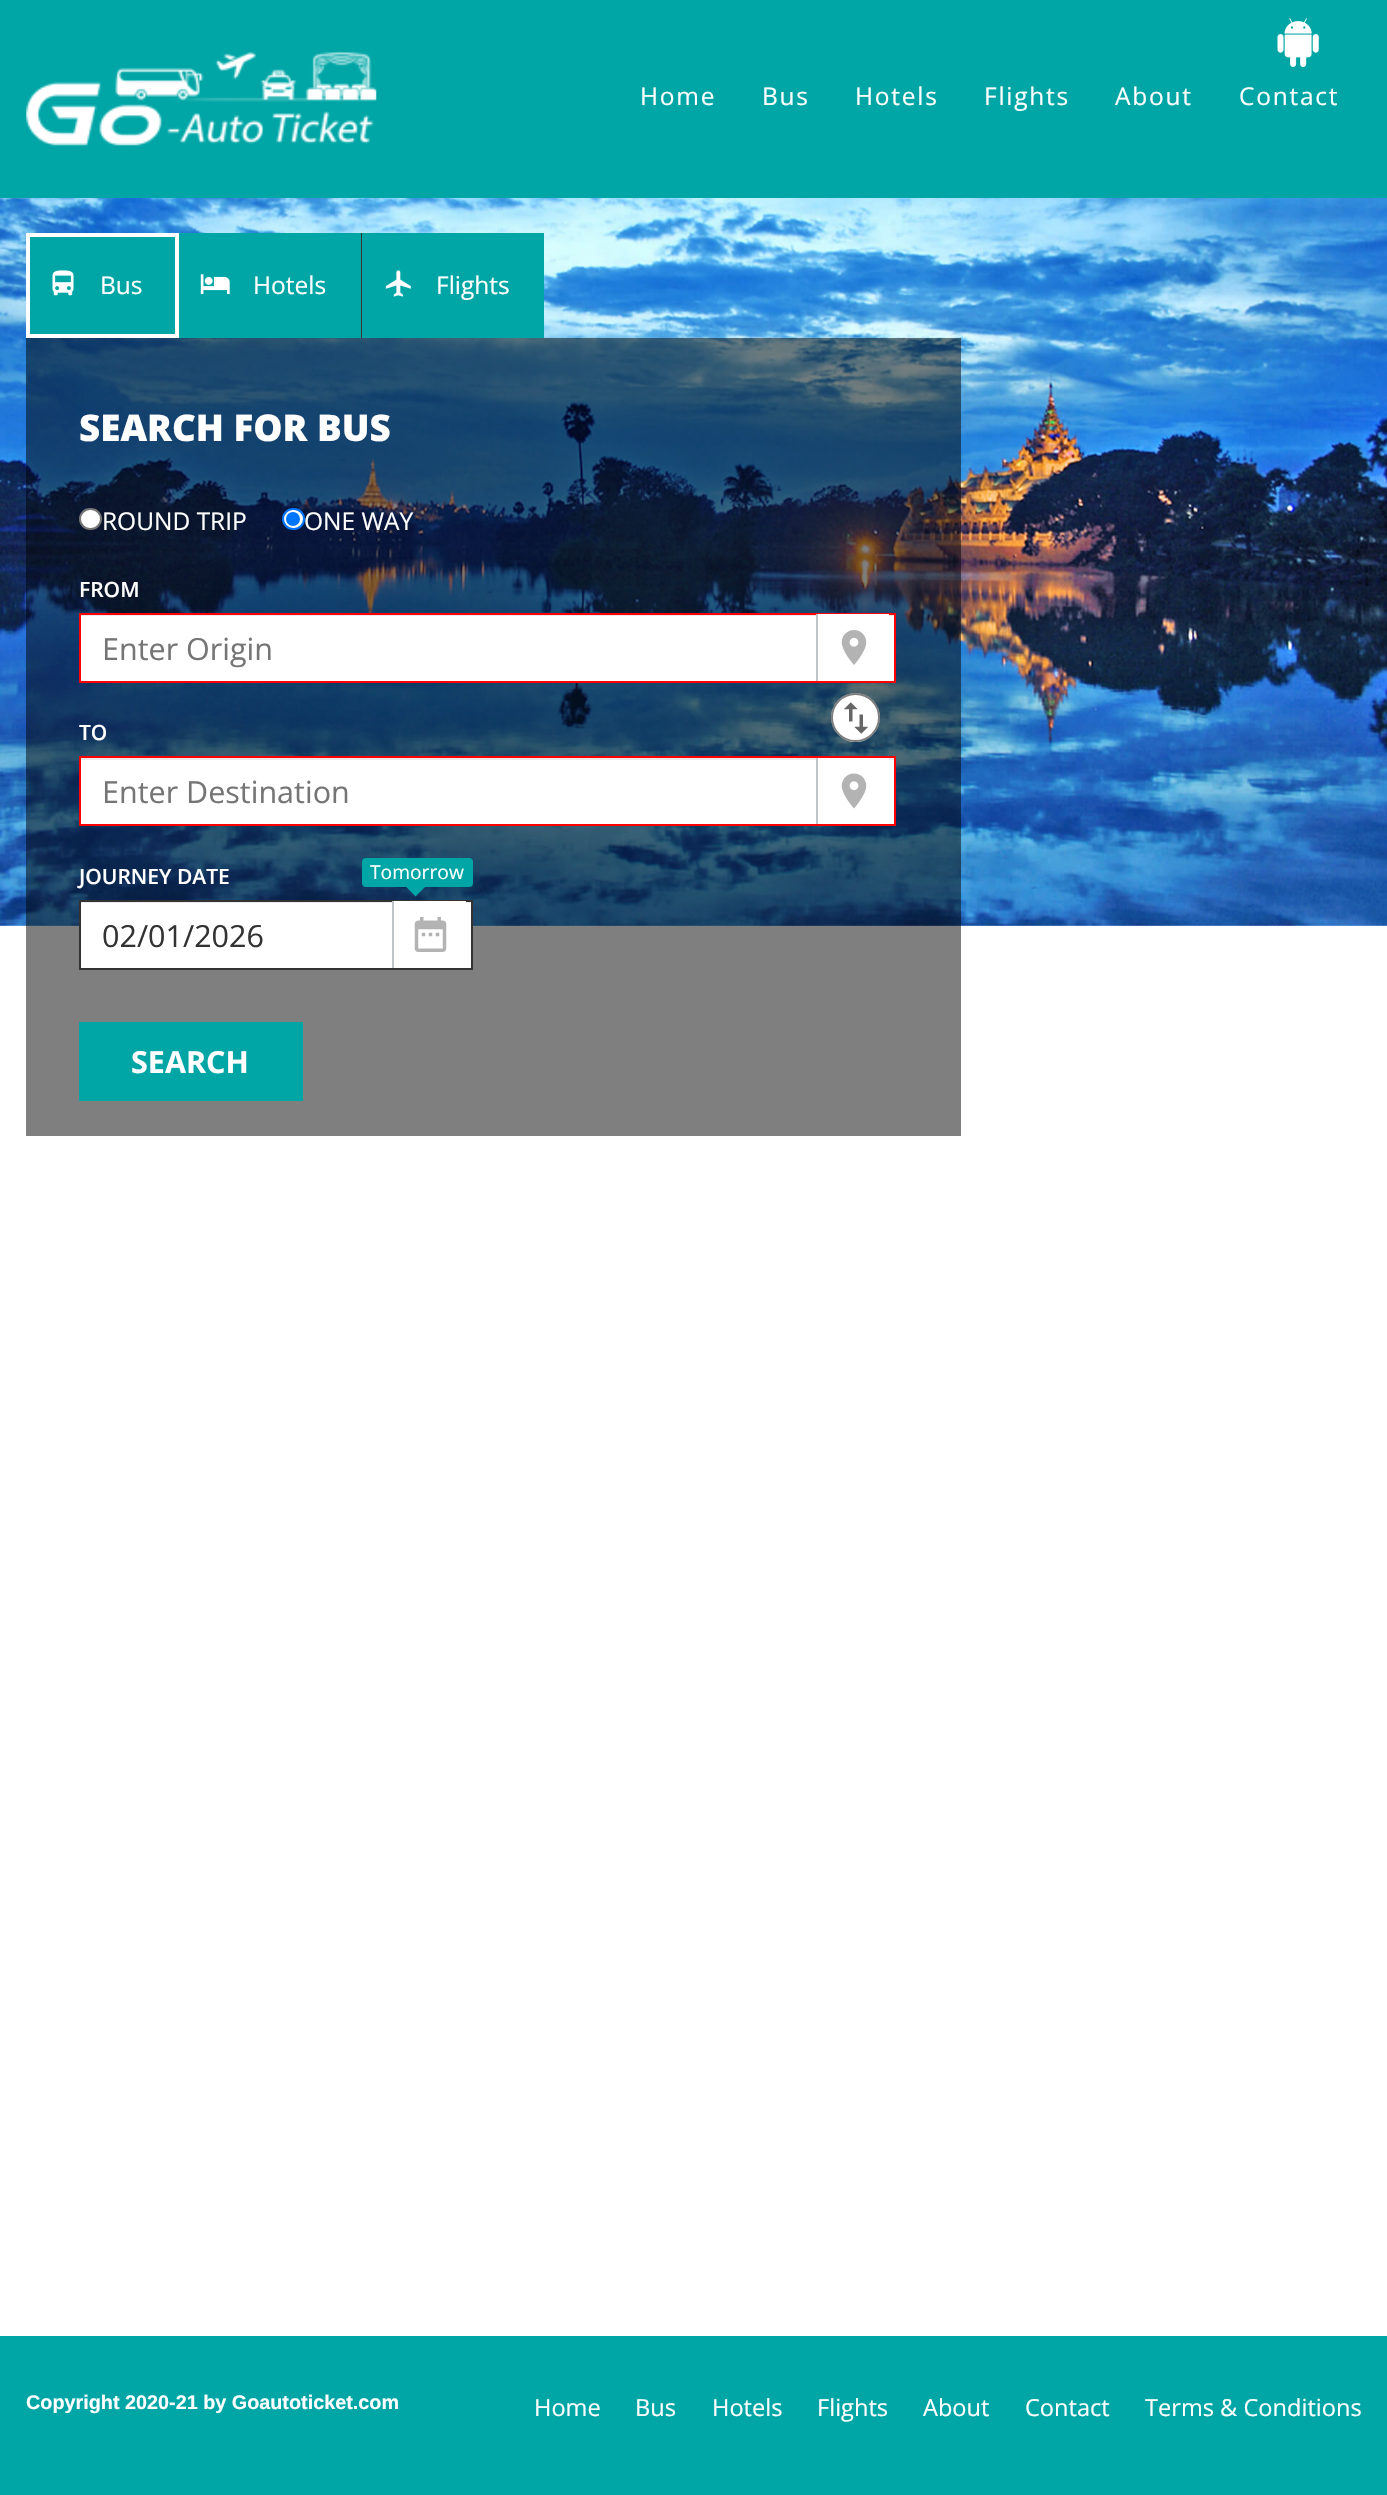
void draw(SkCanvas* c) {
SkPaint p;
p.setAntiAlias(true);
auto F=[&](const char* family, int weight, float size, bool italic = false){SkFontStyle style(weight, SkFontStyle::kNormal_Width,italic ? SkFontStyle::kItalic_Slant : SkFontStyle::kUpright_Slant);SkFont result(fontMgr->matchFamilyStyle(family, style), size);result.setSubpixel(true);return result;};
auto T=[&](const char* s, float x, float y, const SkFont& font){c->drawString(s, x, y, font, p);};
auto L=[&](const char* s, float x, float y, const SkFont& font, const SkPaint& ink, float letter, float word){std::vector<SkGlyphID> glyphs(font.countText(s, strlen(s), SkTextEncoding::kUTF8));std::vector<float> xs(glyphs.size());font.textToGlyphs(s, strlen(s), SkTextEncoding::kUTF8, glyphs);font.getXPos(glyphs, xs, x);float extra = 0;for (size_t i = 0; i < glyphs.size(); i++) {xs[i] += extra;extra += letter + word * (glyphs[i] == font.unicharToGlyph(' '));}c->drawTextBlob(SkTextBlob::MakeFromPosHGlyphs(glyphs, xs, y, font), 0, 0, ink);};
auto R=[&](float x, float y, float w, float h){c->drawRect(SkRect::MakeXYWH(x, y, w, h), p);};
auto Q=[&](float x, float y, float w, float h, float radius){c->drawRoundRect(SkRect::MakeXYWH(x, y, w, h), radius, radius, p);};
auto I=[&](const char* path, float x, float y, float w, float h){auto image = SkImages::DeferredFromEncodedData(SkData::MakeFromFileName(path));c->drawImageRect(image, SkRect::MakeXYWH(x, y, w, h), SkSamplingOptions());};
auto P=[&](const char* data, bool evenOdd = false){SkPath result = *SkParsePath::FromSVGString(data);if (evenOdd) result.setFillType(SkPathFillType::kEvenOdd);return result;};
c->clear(0xffffffff);
p.setColor(0xff00a6a6);
R(0,0,1387,198);
I("1.png",1277,18,42,49);
I("2.png",26,52,351,94);
auto f1 = F("Open Sans",400,24.5);
p.setColor(0xffffffff);
L("Home",640,105,f1,p,1.75,0);
L("Bus",762,105,f1,p,1.75,0);
L("Hotels",855,105,f1,p,1.75,0);
L("Flights",984,105,f1,p,1.75,0);
L("About",1115,105,f1,p,1.75,0);
L("Contact",1239,105,f1,p,1.75,0);
I("3.png",0,198,1387,728);
p.setColor(0xff00a6a6);
R(30,237,145,97);
I("4.png",52,270,22,26);
p.setStroke(true);
p.setStrokeWidth(4);
p.setColor(0xffffffff);
c->drawRect(SkRect::MakeXYWH(28,235,149,101),p);
p.setStroke(false);
T("Bus",100,294,f1);
p.setColor(0xff333333);
R(361,233,1,105);
p.setColor(0xff00a6a6);
R(179,233,182,105);
I("5.png",200,274,30,20);
p.setColor(0xffffffff);
T("Hotels",253,294,f1);
p.setColor(0xff00a6a6);
R(362,233,182,105);
I("6.png",385,270,26,27);
p.setColor(0xffffffff);
T("Flights",436,294,f1);
p.setColor(0x80000000);
R(26,338,935,798);
auto f2 = F("Open Sans",800,36.75);
p.setColor(0xffffffff);
T("SEARCH FOR BUS",79,441,f2);
c->drawRoundRect(SkRect::MakeXYWH(80,509,21,20),10,10,p);
p.setStroke(true);
p.setStrokeWidth(2);
p.setColor(0xff767676);
c->drawRoundRect(SkRect::MakeXYWH(80,509,21,20),10,10,p);
p.setStroke(false);
p.setColor(0xffffffff);
T("ROUND TRIP",102,530,f1);
c->drawRoundRect(SkRect::MakeXYWH(283,509,21,20),10,10,p);
p.setStroke(true);
p.setColor(0xff0075ff);
c->drawRoundRect(SkRect::MakeXYWH(283,509,21,20),10,10,p);
p.setStroke(false);
c->drawCircle(293,519,7,p);
p.setColor(0xffffffff);
T("ONE WAY",304,530,f1);
auto f3 = F("Open Sans",600,21);
T("FROM",79,597,f3);
R(81,616,813,65);
p.setColor(0xffececec);
R(81,615,813,1);
p.setStroke(true);
p.setColor(0xffff0000);
c->drawRect(SkRect::MakeXYWH(80,614,815,68),p);
auto f4 = F("Open Sans",400,30.5);
p.setStroke(false);
p.setColor(0xff757575);
T("Enter Origin",102,660,f4);
p.setColor(0xffffffff);
R(818,614,71,2);
p.setColor(0xffbec4c8);
R(816,614,2,67);
I("7.png",841,630,26,35);
p.setColor(0xffffffff);
T("TO",79,740,f3);
c->drawCircle(855.5,717.5,24.5,p);
I("8.png",844,702,24,32);
p.setStroke(true);
p.setColor(0x80000000);
c->drawCircle(855.5,717.5,23.5,p);
p.setStroke(false);
p.setColor(0xffffffff);
R(81,760,813,64);
p.setColor(0xffececec);
R(81,758,813,2);
p.setStroke(true);
p.setColor(0xffff0000);
c->drawRect(SkRect::MakeXYWH(80,757,815,68),p);
p.setStroke(false);
p.setColor(0xff757575);
T("Enter Destination",102,803,f4);
p.setColor(0xffffffff);
R(818,758,71,2);
p.setColor(0xffbec4c8);
R(816,758,2,66);
I("9.png",841,773,26,36);
p.setColor(0xffffffff);
T("JOURNEY DATE",79,884,f3);
p.setColor(0xff00a6a6);
Q(362,858,111,29,4);
c->drawPath(P("M415.5 871.5l12.5 12.5l-12.5 12.5l-12-12.5z"),p);
auto f5 = F("Open Sans",400,19.25);
p.setColor(0xffffffff);
T("Tomorrow",370,879,f5);
R(81,903,390,65);
p.setColor(0xffececec);
R(81,902,390,1);
p.setStroke(true);
p.setColor(0xff333333);
c->drawRect(SkRect::MakeXYWH(80,901,392,68),p);
p.setStroke(false);
T("02/01/2026",102,947,f4);
p.setColor(0xffffffff);
R(394,901,72,2);
p.setColor(0xffbec4c8);
R(392,901,2,67);
I("10.png",414,917,33,35);
p.setColor(0xff00a6a6);
R(79,1022,224,79);
auto f6 = F("Open Sans",700,30.5);
p.setColor(0xffffffff);
T("SEARCH",131,1073,f6);
p.setColor(0xff00a6a6);
R(0,2336,1387,159);
auto f7 = F("Liberation Sans",700,19.8);
p.setColor(0xffffffff);
T("Copyright 2020-21 by Goautoticket.com",26,2409,f7);
auto f8 = F("Open Sans",400,23.6);
T("Home",534,2416,f8);
T("Bus",635,2416,f8);
T("Hotels",712,2416,f8);
T("Flights",817,2416,f8);
T("About",923,2416,f8);
T("Contact",1025,2416,f8);
T("Terms & Conditions",1145,2416,f8);
}
